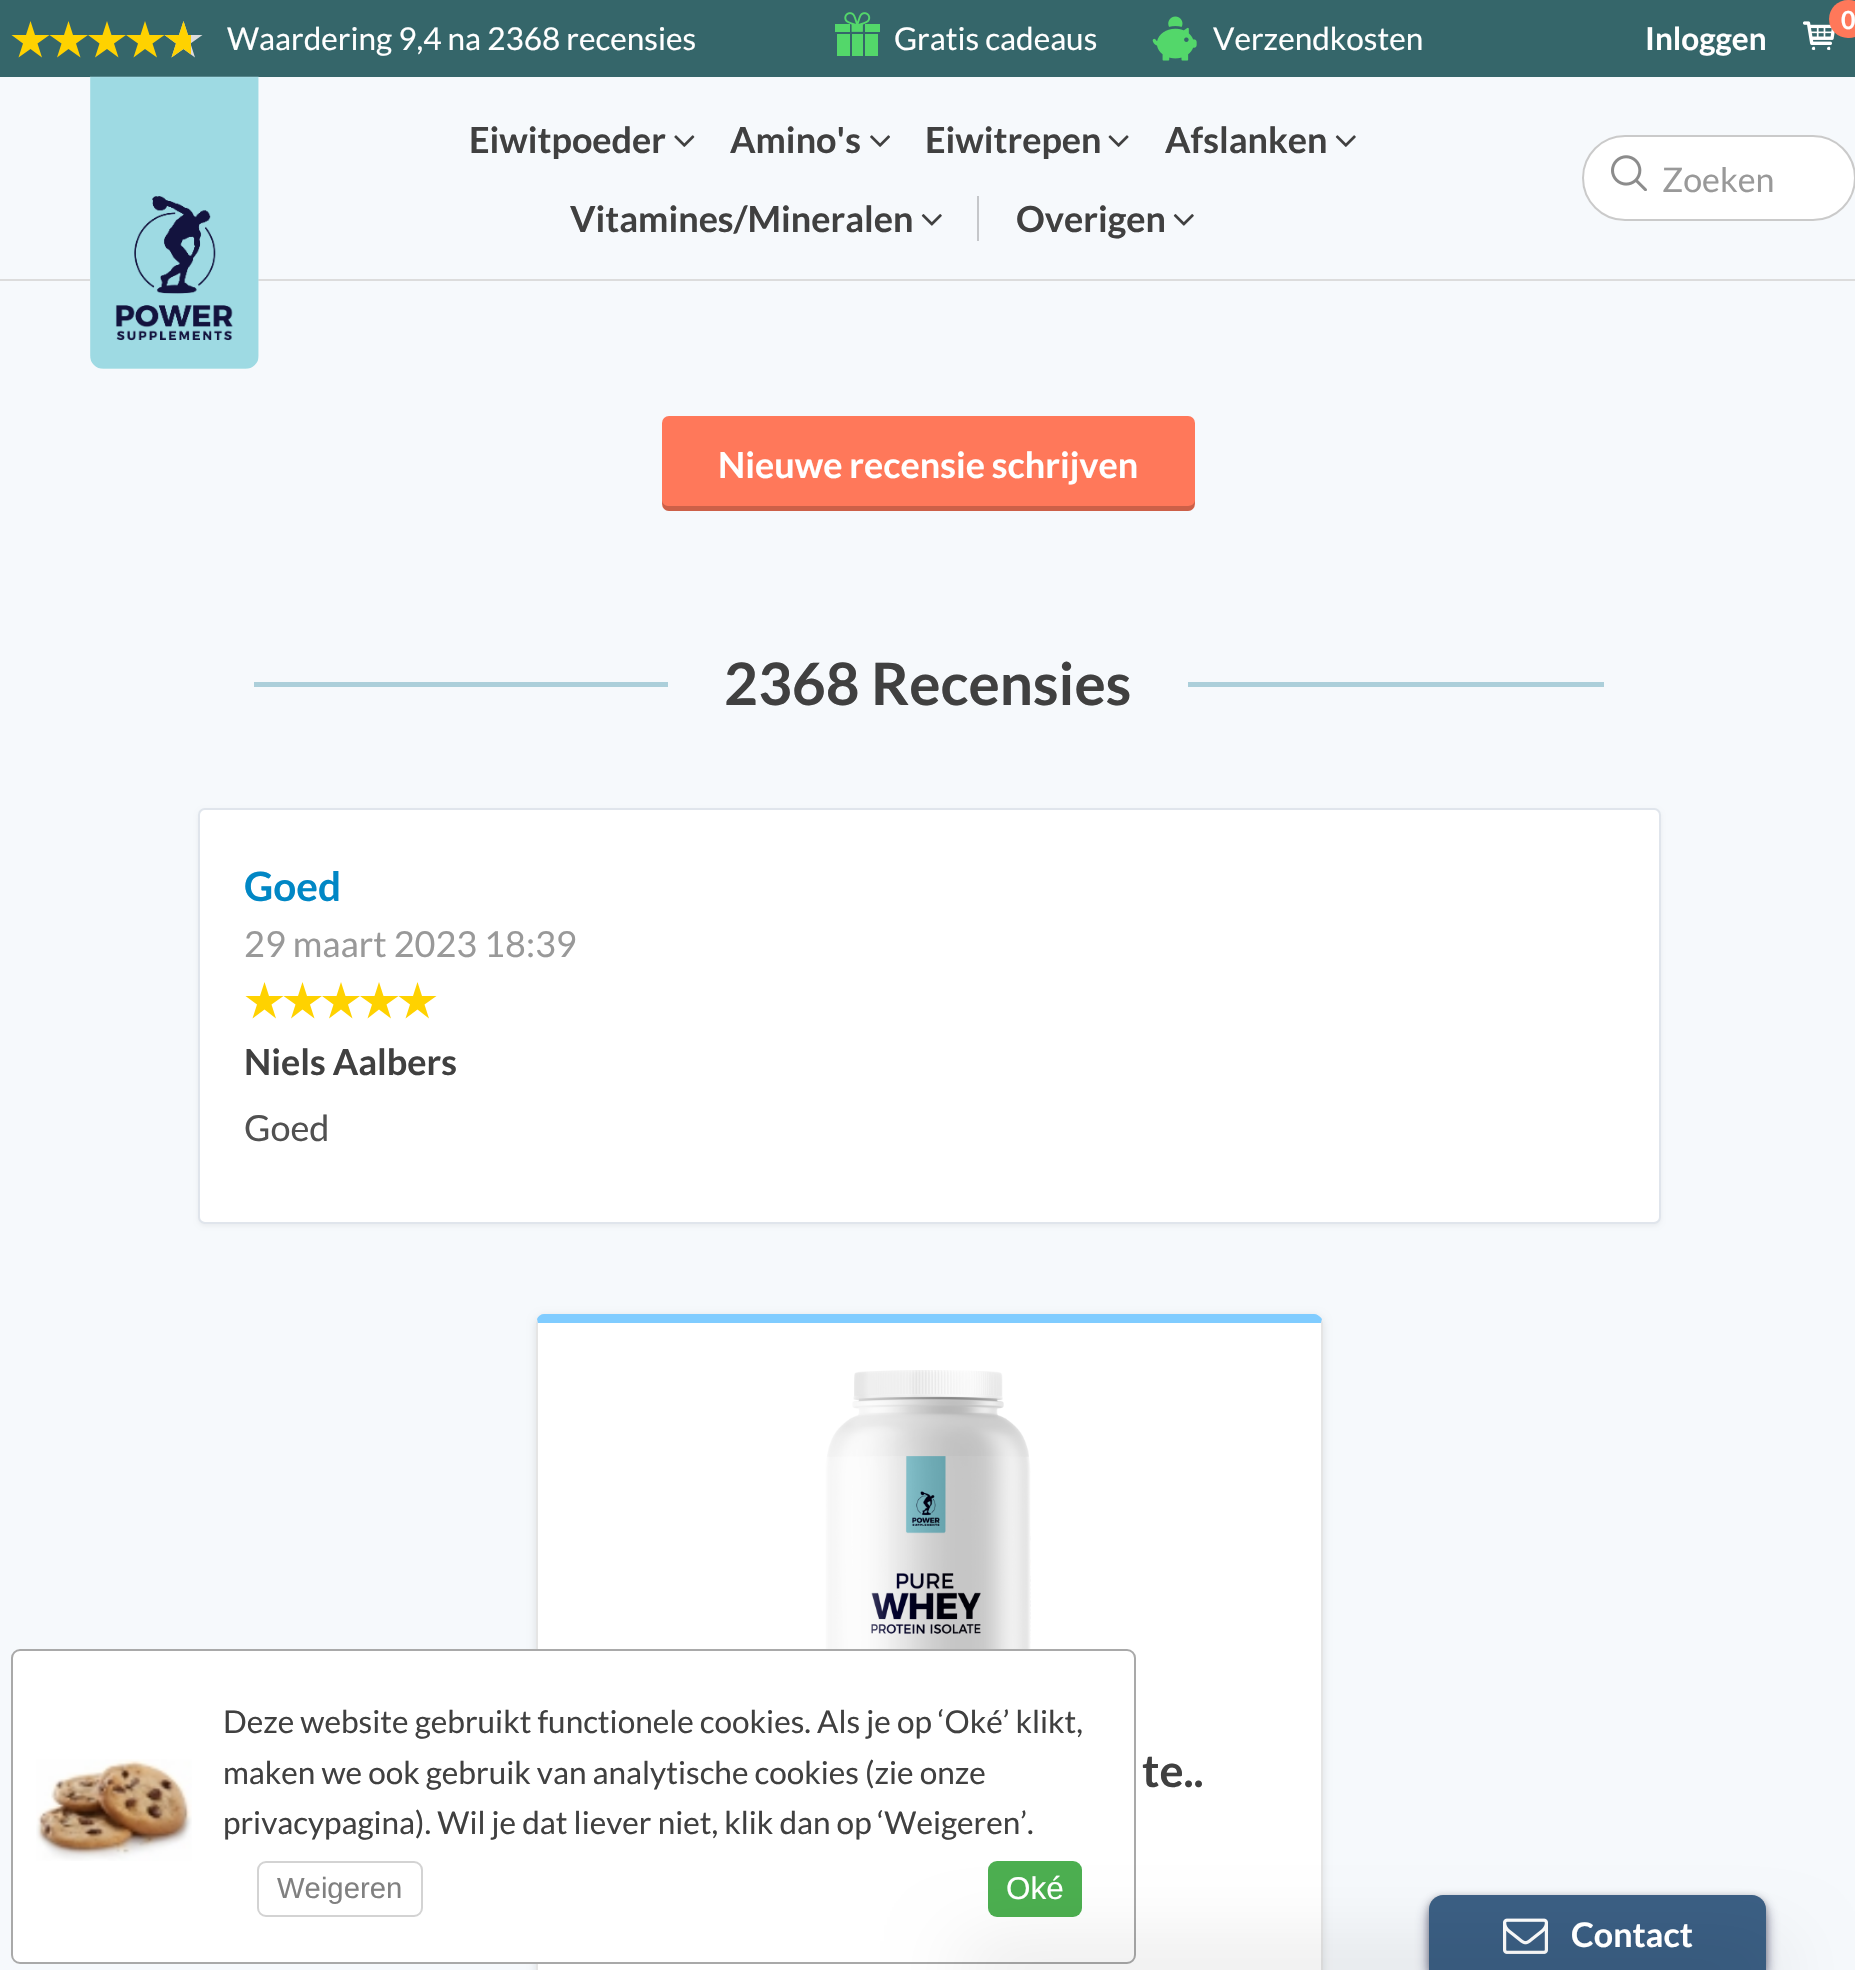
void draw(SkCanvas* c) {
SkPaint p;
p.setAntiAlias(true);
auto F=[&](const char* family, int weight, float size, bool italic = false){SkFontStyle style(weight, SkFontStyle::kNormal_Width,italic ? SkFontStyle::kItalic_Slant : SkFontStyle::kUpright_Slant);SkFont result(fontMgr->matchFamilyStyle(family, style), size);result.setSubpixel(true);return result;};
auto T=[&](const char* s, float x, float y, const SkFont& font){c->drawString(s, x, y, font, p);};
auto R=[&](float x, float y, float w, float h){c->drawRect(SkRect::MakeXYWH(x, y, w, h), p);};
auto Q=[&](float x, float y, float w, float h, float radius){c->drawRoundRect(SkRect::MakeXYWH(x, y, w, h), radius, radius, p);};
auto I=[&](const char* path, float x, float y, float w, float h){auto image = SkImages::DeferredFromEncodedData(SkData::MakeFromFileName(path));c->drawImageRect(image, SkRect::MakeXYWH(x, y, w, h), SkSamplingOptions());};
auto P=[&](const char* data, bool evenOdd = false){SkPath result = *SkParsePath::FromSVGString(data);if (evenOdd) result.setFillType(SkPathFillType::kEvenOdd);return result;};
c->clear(0xfff6f9fc);
p.setColor(0xff35666a);
R(0,0,1855,77);
p.setColor(0xffffd200);
c->drawPath(P("M30.5 21l4.5 14h14.5l-12 8.5l4.5 14l-11.5-8.5l-12 8.5l4.5-14l-11.5-8.5h14.5z"),p);
c->drawPath(P("M68.5 21l4.5 14h15l-12 8.5l4.5 14l-12-8.5l-11.5 8.5l4.5-14l-12-8.5h14.5z"),p);
c->drawPath(P("M107 21l4.5 14h14.5l-12 8.5l4.5 14l-11.5-8.5l-12 8.5l4.5-14l-11.5-8.5h14.5z"),p);
c->drawPath(P("M145 21l4.5 14h15l-12 8.5l4.5 14l-12-8.5l-11.5 8.5l4.5-14l-12-8.5h14.5z"),p);
p.setColor(0xffdcdcdc);
c->drawPath(P("M183.5 21l4.5 14h14.5l-12 8.5l4.5 14l-11.5-8.5l-12 8.5l4.5-14l-11.5-8.5h14.5z"),p);
c->save();
c->clipRect(SkRect::MakeXYWH(164,20,27,39));
p.setColor(0xffffd200);
c->drawPath(P("M183.5 21l4.5 14h14.5l-12 8.5l4.5 14l-11.5-8.5l-12 8.5l4.5-14l-11.5-8.5h14.5z"),p);
c->restore();
auto f1 = F("Lato",400,31.5);
p.setColor(0xffffffff);
T("Waardering 9,4 na 2368 recensies",227,50,f1);
I("1.png",835,12,45,44);
T("Gratis cadeaus",894,50,f1);
I("2.png",1152,16,45,45);
T("Verzendkosten",1213,50,f1);
I("3.png",1803,21,32,30);
p.setColor(0xffff785a);
Q(1829,0,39,38,19);
auto f2 = F("Lato",700,25);
p.setColor(0xffffffff);
T("0",1841,29,f2);
auto f3 = F("Lato",700,31.5);
T("Inloggen",1645,50,f3);
p.setColor(0xffdcdcdc);
R(0,279,1855,2);
I("4.png",90,76,169,293);
auto f4 = F("Lato",700,36);
p.setColor(0xff404040);
T("Eiwitpoeder",469,153,f4);
I("5.png",674,135,21,12);
T("Amino's",730,153,f4);
I("6.png",870,135,20,12);
T("Eiwitrepen",925,153,f4);
I("7.png",1108,135,21,12);
T("Afslanken",1165,153,f4);
I("8.png",1335,135,21,12);
T("Vitamines/Mineralen",570,232,f4);
I("9.png",921,214,21,12);
p.setColor(0xffc5c7ca);
R(977,196,2,45);
p.setColor(0xff404040);
T("Overigen",1016,232,f4);
I("9.png",1173,214,21,12);
p.setColor(0xffffffff);
Q(1582,135,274,86,43);
I("10.png",1611,155,36,36);
p.setStroke(true);
p.setStrokeWidth(2);
p.setColor(0xffcacaca);
c->drawRoundRect(SkRect::MakeXYWH(1583,136,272,84),42,42,p);
auto f5 = F("Lato",400,34);
p.setStroke(false);
p.setColor(0xff999999);
T("Zoeken",1662,192,f5);
p.setColor(0xffff785a);
Q(662,416,533,95,7);
p.setColor(0x33000000);
c->drawPath(P("M662 500c0 5 1 11 7 11h519c6 0 7-6 7-11c0 3-3 6-7 6h-520c-3 0-6-3-6-6z"),p);
p.setColor(0xffffffff);
T("Nieuwe recensie schrijven",718,478,f4);
p.setColor(0xffaccfda);
R(254,682,1350,5);
p.setColor(0xfff6f9fc);
R(668,682,520,5);
auto f6 = F("Lato",700,58.5);
p.setColor(0xff404040);
T("2368 Recensies",724,705,f6);
p.setColor(0x0d000000);
p.setMaskFilter(SkMaskFilter::MakeBlur(kNormal_SkBlurStyle, 2));
c->drawRoundRect(SkRect::MakeXYWH(198,810,1463,416),7,7,p);
p.setMaskFilter(nullptr);
p.setColor(0xffffffff);
Q(198,808,1463,416,7);
p.setStroke(true);
p.setColor(0x1f002864);
c->drawRoundRect(SkRect::MakeXYWH(199,809,1461,414),6,6,p);
auto f7 = F("Lato",700,40.5);
p.setStroke(false);
p.setColor(0xff0187c5);
T("Goed",244,901,f7);
auto f8 = F("Lato",400,36);
p.setColor(0xff999999);
T("29 maart 2023 18:39",244,957,f8);
p.setColor(0xffffd200);
c->drawPath(P("M264.5 982l4.5 14h14.5l-12 8.5l4.5 14l-11.5-9l-12 9l4.5-14l-11.5-8.5h14.5z"),p);
c->drawPath(P("M302.5 982l4.5 14h15l-12 8.5l4.5 14l-12-9l-11.5 9l4.5-14l-12-8.5h14.5z"),p);
c->drawPath(P("M341 982l4.5 14h14.5l-12 8.5l4.5 14l-11.5-9l-12 9l4.5-14l-11.5-8.5h14.5z"),p);
c->drawPath(P("M379 982l4.5 14h15l-12 8.5l4.5 14l-12-9l-11.5 9l4.5-14l-12-8.5h14.5z"),p);
c->drawPath(P("M417.5 982l4.5 14h14.5l-12 8.5l4.5 14l-11.5-9l-12 9l4.5-14l-11.5-8.5h14.5z"),p);
p.setColor(0xff404040);
T("Niels Aalbers",244,1075,f4);
p.setColor(0xff515151);
T("Goed",244,1141,f8);
p.setColor(0x1a000000);
p.setMaskFilter(SkMaskFilter::MakeBlur(kNormal_SkBlurStyle, 4.5));
c->drawRoundRect(SkRect::MakeXYWH(536,1316,787,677),9,9,p);
p.setMaskFilter(nullptr);
p.setColor(0xffffffff);
Q(536,1314,787,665,9);
p.setColor(0xff80ccff);
c->drawPath(P("M544 1314c-3 0-6 2-7 5l1 5v-1h783l1-4c-2-3-5-5-8-5z"),p);
p.setColor(0x54afafaf);
c->drawPath(P("M1323 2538v-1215l-1-4l-1 4v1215c0 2-1 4-2 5l1 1c2-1 3-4 3-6z"),p);
c->drawPath(P("M537 1319l-1 4v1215c0 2 1 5 2 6l2-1c-1-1-2-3-2-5v-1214z"),p);
I("11.png",807,1370,248,279);
auto f9 = F("Lato",700,45);
p.setColor(0xff404040);
T("te..",1142,1787,f9);
p.setColor(0x47000000);
p.setMaskFilter(SkMaskFilter::MakeBlur(kNormal_SkBlurStyle, 3.5));
c->drawRoundRect(SkRect::MakeXYWH(1429,1897,337,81),14,14,p);
p.setMaskFilter(nullptr);
p.setColor(0x9c32325d);
p.setMaskFilter(SkMaskFilter::MakeBlur(kNormal_SkBlurStyle, 7));
c->drawRoundRect(SkRect::MakeXYWH(1429,1904,337,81),14,14,p);
p.setMaskFilter(nullptr);
p.setColor(0xff3b5f84);
c->drawPath(P("M1443 1895h309c7.5 0 14 6.5 14 14v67h-337v-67c0-7.5 6.5-14 14-14z"),p);
I("12.png",1503,1918,45,36);
p.setColor(0xffffffff);
Q(11,1649,1125,315,9);
I("13.png",36,1759,156,102);
p.setStroke(true);
p.setColor(0xffa9a9a9);
c->drawRoundRect(SkRect::MakeXYWH(12,1650,1123,313),8,8,p);
p.setStroke(false);
p.setColor(0xff4caf50);
Q(988,1861,94,56,9);
p.setColor(0x26000000);
p.setMaskFilter(SkMaskFilter::MakeBlur(kNormal_SkBlurStyle, 38));
c->drawRect(SkRect::MakeXYWH(963,1955,819,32),p);
p.setMaskFilter(nullptr);
auto f10 = F("Lato",700,34);
p.setColor(0xffffffff);
T("Contact",1571,1947,f10);
p.setColor(0xff404040);
T("Deze website gebruikt functionele cookies. Als je op ‘Oké’ klikt,",223,1733,f1);
T("maken we ook gebruik van analytische cookies (zie onze",223,1784,f1);
T("privacypagina). Wil je dat liever niet, klik dan op ‘Weigeren’.",223,1834,f1);
p.setStroke(true);
p.setColor(0xffd3d3d3);
c->drawRoundRect(SkRect::MakeXYWH(258,1862,164,54),8,8,p);
auto f11 = F("Liberation Sans",400,29.25);
p.setStroke(false);
p.setColor(0xff808080);
T("Weigeren",277,1898,f11);
auto f12 = F("Liberation Sans",400,31.5);
p.setColor(0xffffffff);
T("Oké",1006,1899,f12);
}
